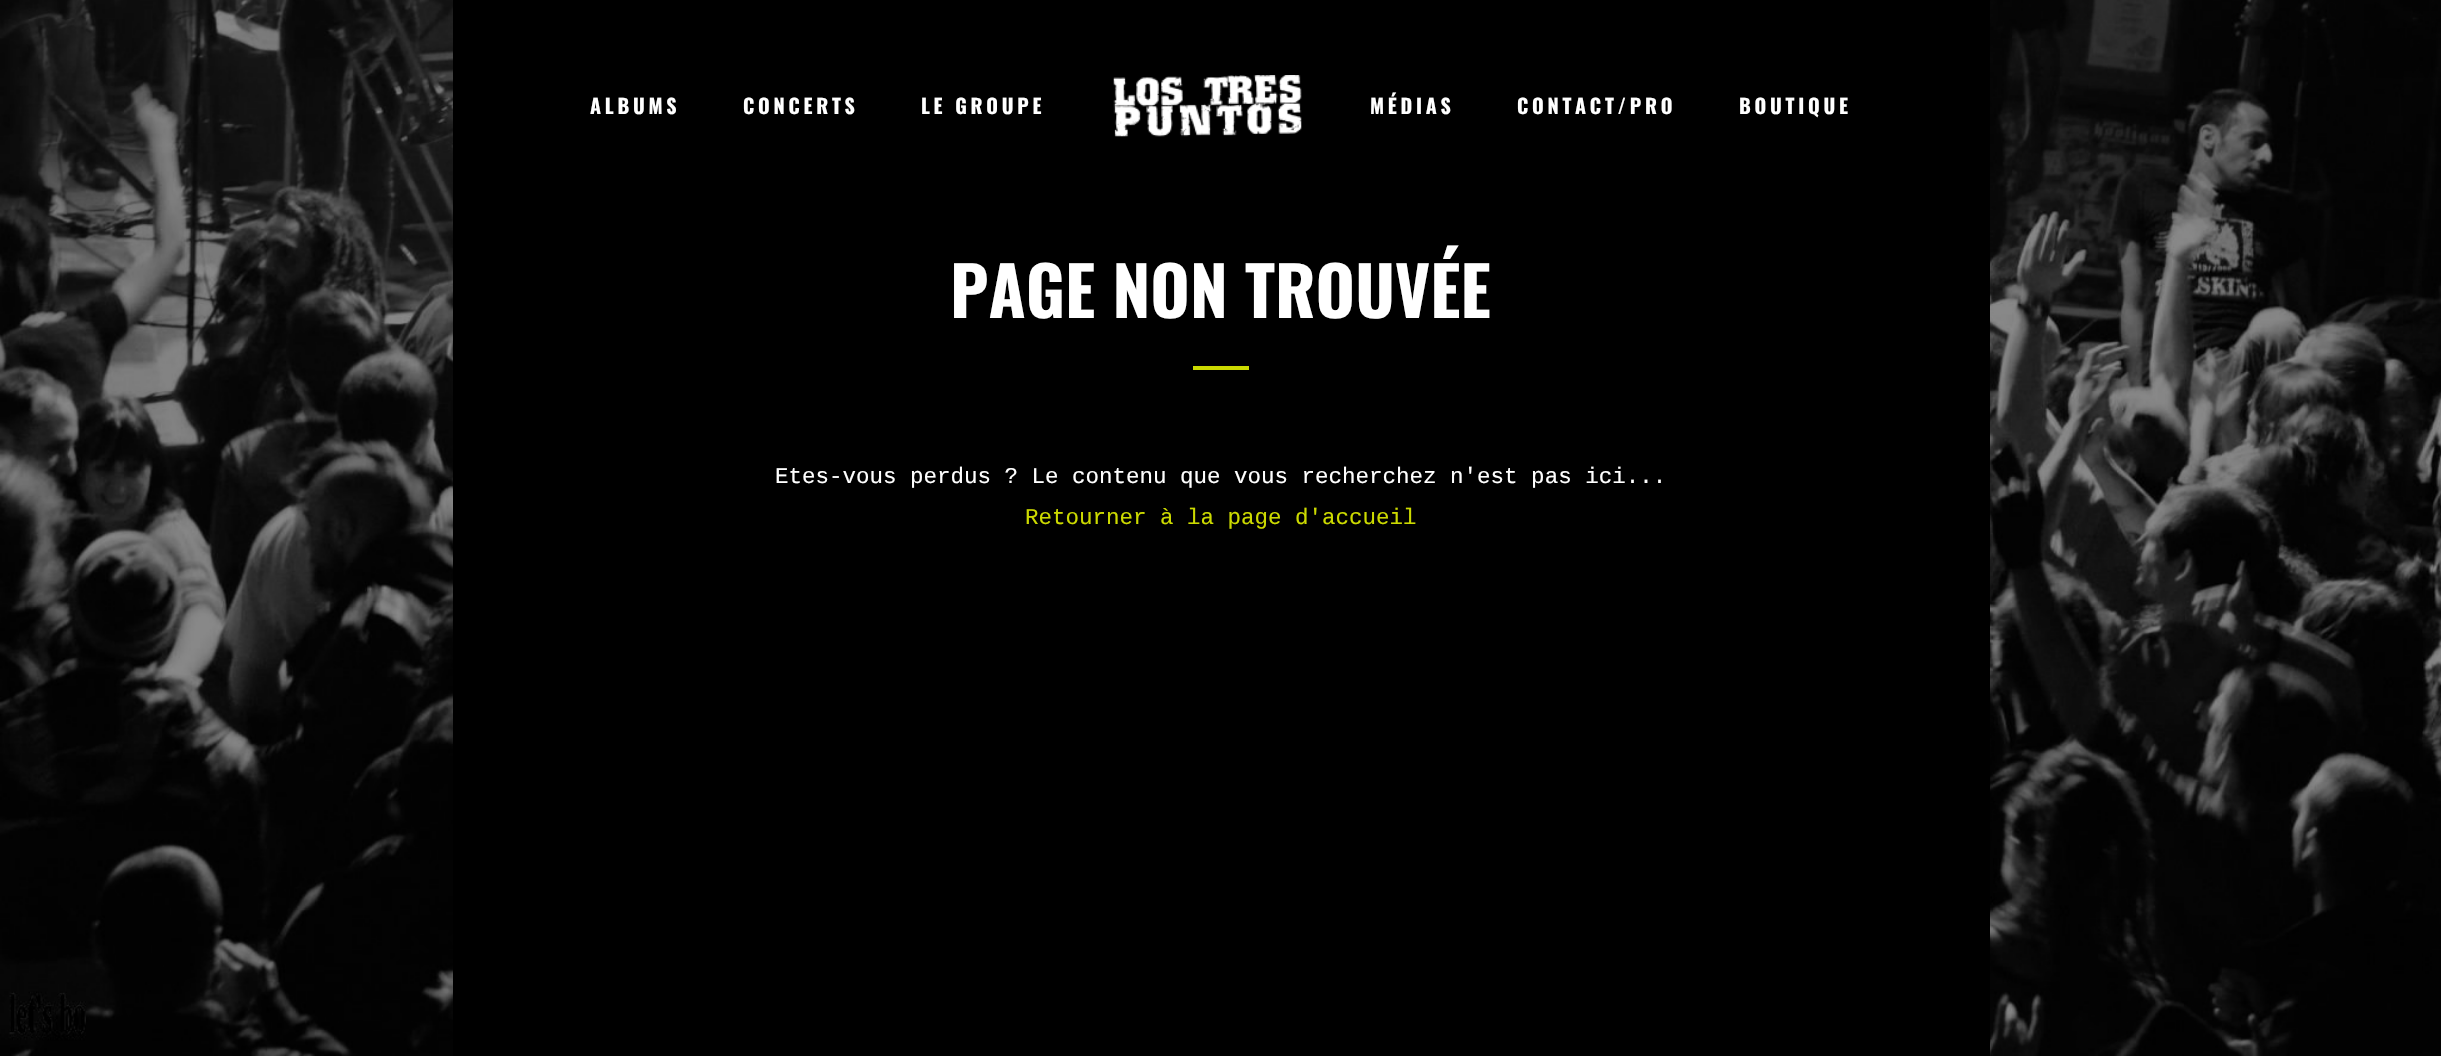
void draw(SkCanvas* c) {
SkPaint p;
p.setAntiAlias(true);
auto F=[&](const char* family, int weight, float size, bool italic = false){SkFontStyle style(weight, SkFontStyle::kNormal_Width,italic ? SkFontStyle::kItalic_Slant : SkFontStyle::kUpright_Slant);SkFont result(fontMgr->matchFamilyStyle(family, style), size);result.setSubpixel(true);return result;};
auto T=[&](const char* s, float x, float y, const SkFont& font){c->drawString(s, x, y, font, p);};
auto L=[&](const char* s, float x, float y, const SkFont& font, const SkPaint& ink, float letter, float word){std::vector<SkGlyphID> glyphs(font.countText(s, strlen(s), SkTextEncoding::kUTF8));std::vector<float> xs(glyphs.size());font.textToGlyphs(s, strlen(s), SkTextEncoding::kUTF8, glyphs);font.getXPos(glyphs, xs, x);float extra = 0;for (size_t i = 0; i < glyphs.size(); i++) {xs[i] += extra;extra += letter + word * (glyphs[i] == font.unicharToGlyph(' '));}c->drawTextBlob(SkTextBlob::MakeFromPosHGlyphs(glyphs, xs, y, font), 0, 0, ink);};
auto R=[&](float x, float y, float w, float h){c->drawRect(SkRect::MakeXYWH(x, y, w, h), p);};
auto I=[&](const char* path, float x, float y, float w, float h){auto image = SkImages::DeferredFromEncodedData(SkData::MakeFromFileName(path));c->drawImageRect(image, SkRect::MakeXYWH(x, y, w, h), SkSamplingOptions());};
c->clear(0xffffffff);
I("1.png",0,0,2441,1056);
p.setColor(0xff000000);
R(453,0,1537,1056);
auto f1 = F("Oswald",700,20);
p.setColor(0xffffffff);
L("ALBUMS",590,114,f1,p,3.75,0);
L("CONCERTS",743,114,f1,p,3.75,0);
L("LE GROUPE",921,114,f1,p,3.75,0);
I("2.png",1113,75,189,62);
L("MÉDIAS",1370,114,f1,p,3.75,0);
L("CONTACT/PRO",1517,114,f1,p,3.75,0);
L("BOUTIQUE",1739,114,f1,p,3.75,0);
auto f2 = F("Oswald",700,67.5);
T("PAGE NON TROUVÉE",950,318,f2);
p.setColor(0xffccda00);
R(1193,366,56,4);
auto f3 = F("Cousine",400,22.5);
p.setColor(0xffffffff);
T("Etes-vous perdus ? Le contenu que vous recherchez n'est pas ici...",775,483,f3);
p.setColor(0xffccda00);
T("Retourner à la page d'accueil",1025,524,f3);
}
